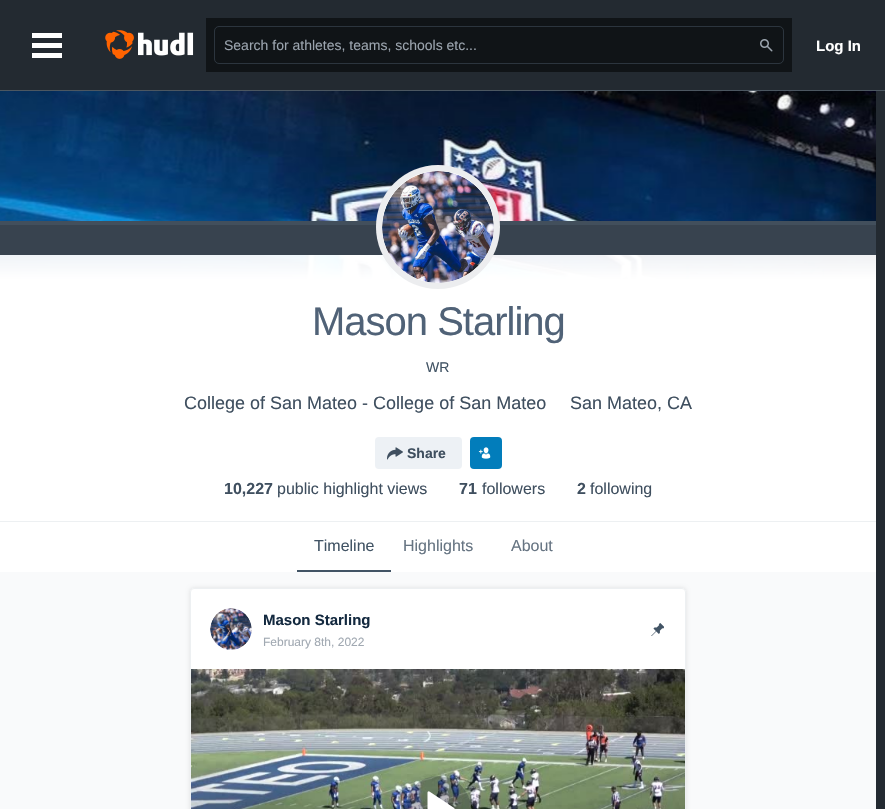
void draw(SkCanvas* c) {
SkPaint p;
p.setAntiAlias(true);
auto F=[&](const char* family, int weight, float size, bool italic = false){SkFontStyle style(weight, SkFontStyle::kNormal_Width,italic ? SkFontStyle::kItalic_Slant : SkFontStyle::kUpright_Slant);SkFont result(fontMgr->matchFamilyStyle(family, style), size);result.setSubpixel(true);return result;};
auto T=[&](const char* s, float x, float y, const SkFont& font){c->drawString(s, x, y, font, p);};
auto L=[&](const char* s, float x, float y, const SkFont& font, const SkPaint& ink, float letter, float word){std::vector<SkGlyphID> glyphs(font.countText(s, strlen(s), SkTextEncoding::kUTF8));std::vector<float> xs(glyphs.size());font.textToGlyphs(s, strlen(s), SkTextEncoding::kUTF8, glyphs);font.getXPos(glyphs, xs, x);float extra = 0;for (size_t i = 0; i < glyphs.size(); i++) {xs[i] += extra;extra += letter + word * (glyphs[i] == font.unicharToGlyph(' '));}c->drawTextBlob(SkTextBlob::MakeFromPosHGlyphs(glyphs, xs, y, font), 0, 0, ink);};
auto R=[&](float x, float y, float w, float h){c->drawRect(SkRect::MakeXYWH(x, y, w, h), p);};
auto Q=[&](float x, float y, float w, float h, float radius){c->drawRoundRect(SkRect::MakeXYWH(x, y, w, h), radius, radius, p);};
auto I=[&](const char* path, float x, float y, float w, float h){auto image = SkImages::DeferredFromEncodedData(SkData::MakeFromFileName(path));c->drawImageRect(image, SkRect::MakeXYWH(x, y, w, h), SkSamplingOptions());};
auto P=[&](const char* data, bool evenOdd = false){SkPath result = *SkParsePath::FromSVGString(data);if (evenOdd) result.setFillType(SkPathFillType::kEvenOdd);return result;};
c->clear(0xff232a31);
p.setColor(0xff4c5761);
R(0,90,885,1);
p.setColor(0xffffffff);
R(32,33,30,5);
R(32,43,30,5);
R(32,53,30,5);
I("1.png",105,30,89,29);
p.setColor(0xff101417);
R(206,18,586,54);
p.setStroke(true);
p.setStrokeWidth(1);
p.setColor(0xff2c353e);
c->drawRoundRect(SkRect::MakeXYWH(214.5,26.5,569,37),4.5,4.5,p);
auto f1 = F("Liberation Sans",400,14);
p.setStroke(false);
p.setColor(0xff9ba4ae);
T("Search for athletes, teams, schools etc...",224,50,f1);
I("2.png",760,39,13,13);
auto f2 = F("Liberation Sans",700,15);
p.setColor(0xffffffff);
T("Log In",816,51,f2);
I("3.png",0,91,876,188);
{
const SkColor colors[] = {0xd9ffffff,0xffffffff};
const float stops[] = {0,.2};
const SkPoint ends[] = {{438,221}, {438,521}};
p.setShader(SkGradientShader::MakeLinear(ends, colors, stops, 2, SkTileMode::kClamp));
p.setAlpha(255);
}
R(0,255,876,266);
p.setShader(nullptr);
p.setColor(0xffedf0f2);
R(0,521,876,1);
p.setColor(0xff424f5c);
R(0,221,876,4);
p.setColor(0xff38434f);
R(0,225,876,30);
p.setColor(0xffffffff);
c->drawCircle(438,227,62,p);
p.setStroke(true);
p.setStrokeWidth(6);
p.setColor(0x1a45525e);
c->drawCircle(438,227,59,p);
I("4.png",382,171,112,112);
auto f3 = F("Liberation Sans",400,40);
p.setStroke(false);
p.setColor(0xff506277);
L("Mason Starling",312,335,f3,p,-1,0);
p.setColor(0xff425465);
T("WR",426,372,f1);
auto f4 = F("Liberation Sans",400,18);
p.setColor(0xff3f4f5f);
T("College of San Mateo - College of San Mateo",184,409,f4);
T("San Mateo, CA",570,409,f4);
p.setColor(0xffedf1f5);
Q(375,437,87,32,4);
I("5.png",387,447,16,13);
auto f5 = F("Liberation Sans",700,14);
p.setColor(0xff3f4f5f);
T("Share",407,458,f5);
p.setColor(0xff027dbb);
Q(470,437,32,32,4);
I("6.png",478,447,13,12);
auto f6 = F("Liberation Sans",700,16);
p.setColor(0xff3f4f5f);
T("10,227",224,494,f6);
auto f7 = F("Liberation Sans",400,16);
T("public highlight views",277,494,f7);
T("71",459,494,f6);
T("followers",482,494,f7);
T("2",577,494,f6);
T("following",590,494,f7);
p.setColor(0xffffffff);
R(0,522,876,50);
p.setColor(0xff425465);
R(297,570,94,2);
T("Timeline",314,551,f7);
p.setColor(0xff667482);
T("Highlights",403,551,f7);
T("About",511,551,f7);
p.setColor(0xfff9fafb);
R(0,572,876,237);
p.setColor(0x1a000000);
p.setMaskFilter(SkMaskFilter::MakeBlur(kNormal_SkBlurStyle, 2));
c->drawRoundRect(SkRect::MakeXYWH(190,588,496,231),4,4,p);
p.setMaskFilter(nullptr);
p.setColor(0xffffffff);
c->drawPath(P("M194 588h488c2 0 4 2 4 4v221h-496v-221c0-2 2-4 4-4z"),p);
p.setStroke(true);
p.setStrokeWidth(1);
p.setColor(0xffedf0f2);
c->drawRoundRect(SkRect::MakeXYWH(190.5,588.5,495,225),3.5,3.5,p);
I("7.png",210,608,42,42);
p.setStroke(false);
p.setColor(0xff13293f);
T("Mason Starling",263,625,f2);
auto f8 = F("Liberation Sans",400,12);
p.setColor(0xffa1a9b2);
T("February 8th, 2022",263,646,f8);
I("8.png",651,623,13,13);
I("9.png",191,669,494,140);
p.setColor(0x4d232a31);
c->drawCircle(438,809,33,p);
I("10.png",427,791,28,18);
}
